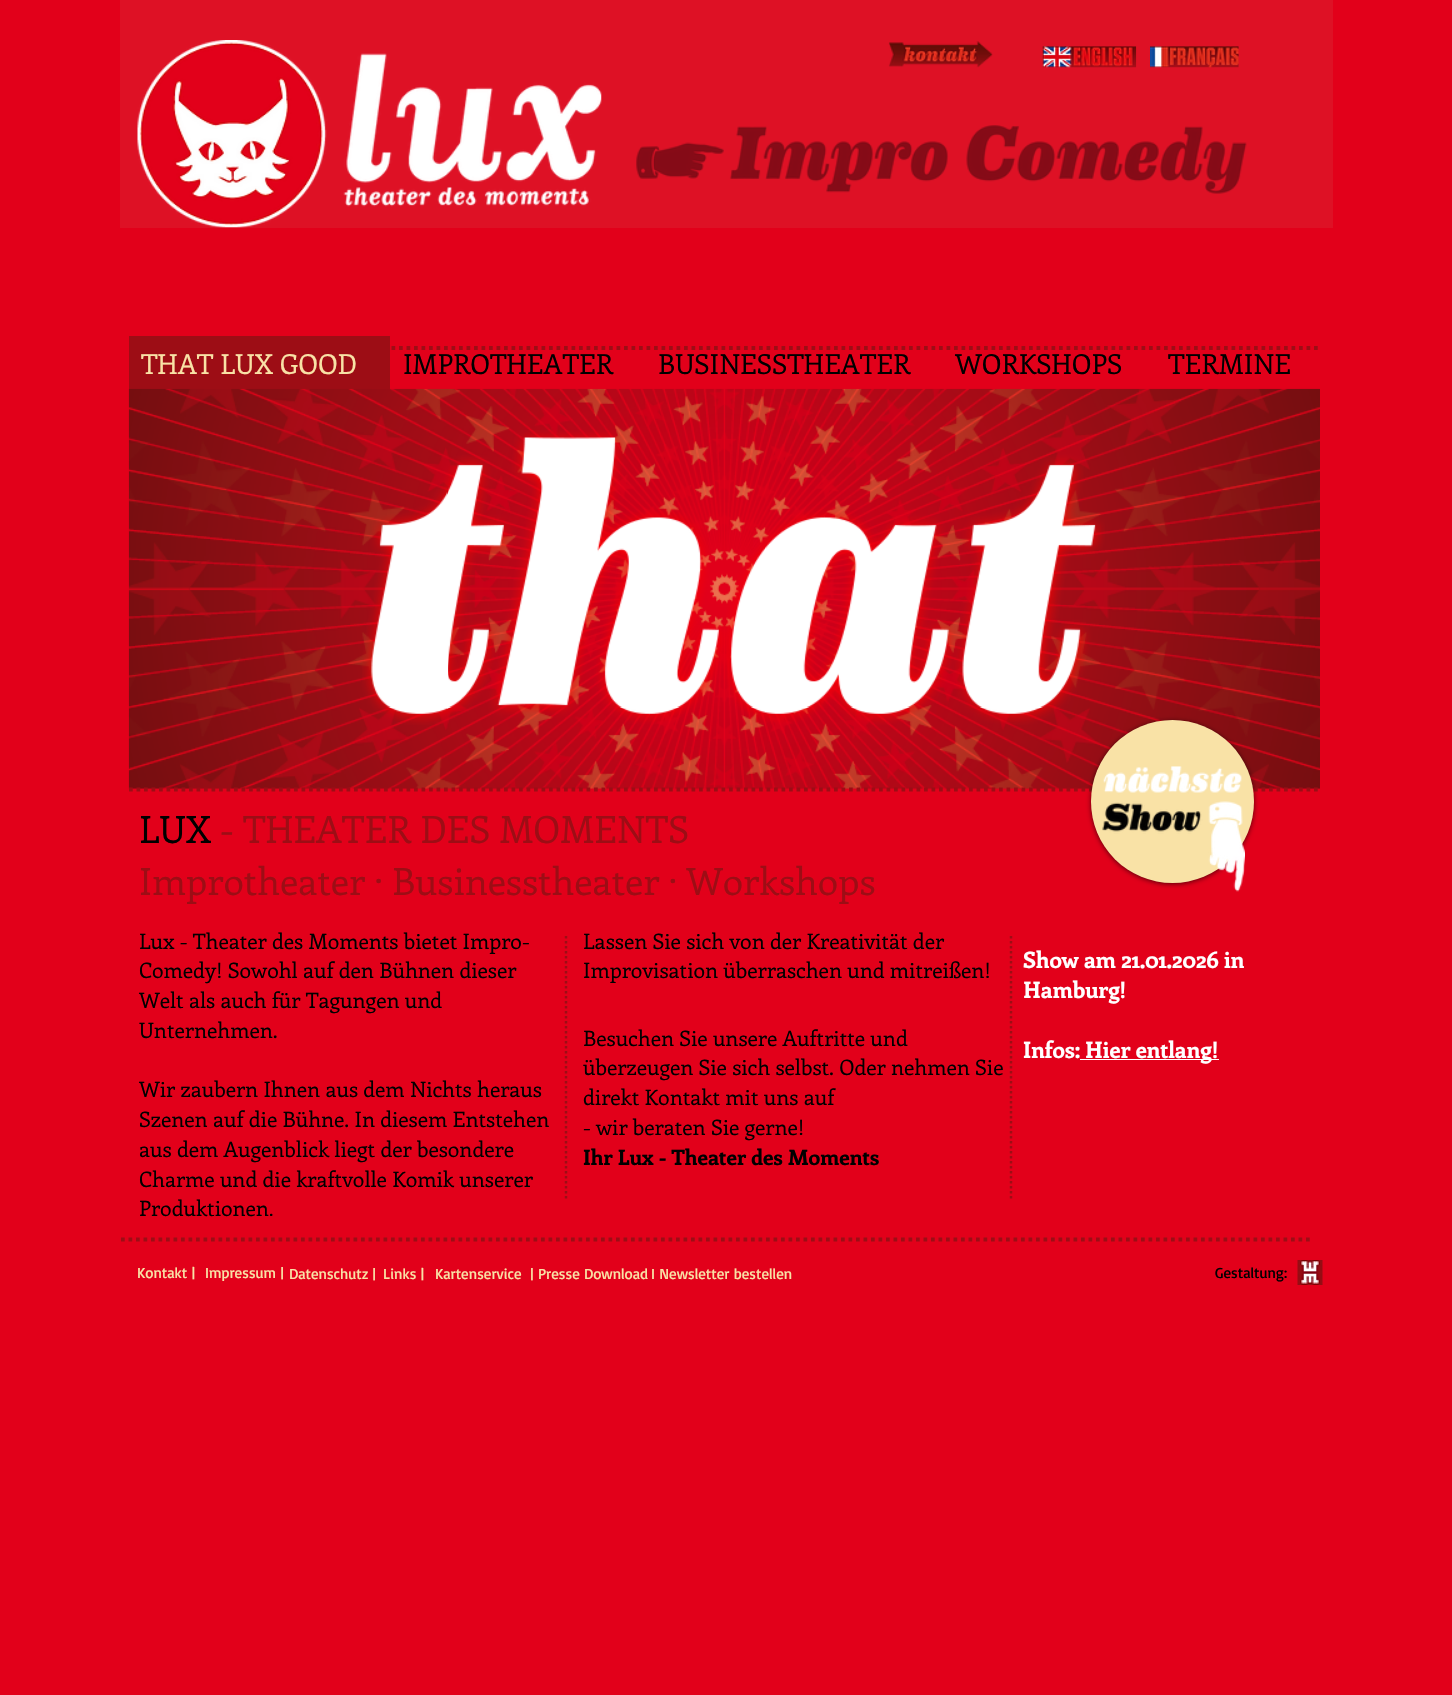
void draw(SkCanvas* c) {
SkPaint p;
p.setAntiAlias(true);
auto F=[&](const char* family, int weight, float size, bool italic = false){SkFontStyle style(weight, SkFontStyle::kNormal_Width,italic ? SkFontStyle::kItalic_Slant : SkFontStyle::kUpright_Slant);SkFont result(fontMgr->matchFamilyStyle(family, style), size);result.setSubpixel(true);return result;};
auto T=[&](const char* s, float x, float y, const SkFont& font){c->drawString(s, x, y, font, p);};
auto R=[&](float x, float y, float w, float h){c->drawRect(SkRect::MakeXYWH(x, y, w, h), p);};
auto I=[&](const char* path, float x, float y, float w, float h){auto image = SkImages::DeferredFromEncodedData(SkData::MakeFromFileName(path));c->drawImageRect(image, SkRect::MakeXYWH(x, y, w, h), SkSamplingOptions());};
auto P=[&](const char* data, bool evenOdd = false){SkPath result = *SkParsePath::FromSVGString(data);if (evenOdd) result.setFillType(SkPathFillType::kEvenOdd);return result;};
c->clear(0xffe2001a);
p.setColor(0xffde1125);
R(120,0,1213,228);
I("1.png",137,40,465,188);
I("2.png",888,41,105,27);
I("3.png",1042,46,95,22);
I("4.png",1150,46,89,22);
I("5.png",636,125,611,69);
p.setColor(0xff9d0d15);
R(129,336,261,53);
p.setStroke(true);
p.setStrokeWidth(3.8);
p.setPathEffect(SkDashPathEffect::Make({{3.75f,3.75f}}, 0));
c->drawPath(P("M129 348h1191"),p);
p.setPathEffect(nullptr);
auto f1 = F("Enriqueta",400,27.5);
p.setStroke(false);
p.setColor(0xfff9e2a6);
T("THAT LUX GOOD",141,374,f1);
p.setColor(0xff000000);
T("IMPROTHEATER",403,374,f1);
T("BUSINESSTHEATER",658,374,f1);
T("WORKSHOPS",955,374,f1);
T("TERMINE",1168,374,f1);
I("6.png",128,388,1192,401);
I("7.png",362,430,743,295);
p.setStroke(true);
p.setColor(0xff9d0d15);
p.setPathEffect(SkDashPathEffect::Make({{3.75f,3.75f}}, 0));
c->drawPath(P("M129 789.5h1191"),p);
p.setPathEffect(nullptr);
p.setStroke(false);
p.setColor(0x99000000);
p.setMaskFilter(SkMaskFilter::MakeBlur(kNormal_SkBlurStyle, 2.5));
c->drawRoundRect(SkRect::MakeXYWH(1091,721,163,163),81.5,81.5,p);
p.setMaskFilter(nullptr);
p.setColor(0xfff9e2a6);
c->drawCircle(1172.5,801.5,81.5,p);
I("8.png",1102,766,143,126);
auto f2 = F("Enriqueta",400,37.5);
p.setColor(0xff000000);
T("LUX",139,843,f2);
p.setColor(0xff9d0d15);
T("- THEATER DES MOMENTS",220,843,f2);
T("Improtheater · Businesstheater · Workshops",139,895,f2);
auto f3 = F("Enriqueta",400,21.25);
p.setColor(0xff000000);
T("Lux - Theater des Moments bietet Impro-",139,949,f3);
T("Comedy! Sowohl auf den Bühnen dieser",139,978,f3);
T("Welt als auch für Tagungen und",139,1008,f3);
T("Unternehmen.",139,1038,f3);
T("Wir zaubern Ihnen aus dem Nichts heraus",139,1097,f3);
T("Szenen auf die Bühne. In diesem Entstehen",139,1127,f3);
T("aus dem Augenblick liegt der besondere",139,1157,f3);
T("Charme und die kraftvolle Komik unserer",139,1187,f3);
T("Produktionen",139,1216,f3);
auto f4 = F("Enriqueta",400,19);
T(".",269,1216,f4);
p.setStroke(true);
p.setStrokeWidth(2.5);
p.setColor(0xff9d0d15);
p.setPathEffect(SkDashPathEffect::Make({{2.5f,2.5f}}, 0));
c->drawPath(P("M566 936v263"),p);
p.setPathEffect(nullptr);
p.setStroke(false);
p.setColor(0xff000000);
T("Lassen Sie sich von der Kreativität der",583,949,f3);
T("Improvisation überraschen und mitreißen!",583,978,f3);
T("Besuchen Sie unsere Auftritte und",583,1046,f3);
T("überzeugen Sie sich selbst. Oder nehmen Sie",583,1075,f3);
T("direkt Kontakt mit uns auf",583,1105,f3);
T("- wir beraten Sie gerne!",583,1135,f3);
auto f5 = F("Enriqueta",700,21.25);
T("Ihr Lux - Theater des Moments",583,1165,f5);
p.setStroke(true);
p.setColor(0xff9d0d15);
p.setPathEffect(SkDashPathEffect::Make({{2.5f,2.5f}}, 0));
c->drawPath(P("M1011 936v263"),p);
p.setPathEffect(nullptr);
auto f6 = F("Enriqueta",700,22.5);
p.setStroke(false);
p.setColor(0xffffffff);
T("Show am 21.01.2026 in",1023,968,f6);
T("Hamburg!",1023,998,f6);
T("Infos:",1023,1058,f6);
R(1080,1059,139,1);
T("Hier entlang!",1085,1058,f6);
p.setStroke(true);
p.setStrokeWidth(3.8);
p.setColor(0xff9d0d15);
p.setPathEffect(SkDashPathEffect::Make({{3.75f,3.75f}}, 0));
c->drawPath(P("M121 1239.5h1191.5"),p);
p.setPathEffect(nullptr);
auto f7 = F("Basic",400,15);
p.setStroke(false);
p.setColor(0xfff9e2a6);
T("Kontakt |",137,1278,f7);
T("Impressum |",205,1278,f7);
T("Datenschutz |",289,1279,f7);
T("Links |",383,1279,f7);
T("Kartenservice",435,1279,f7);
T("| Presse Download",530,1279,f7);
T("I Newsletter bestellen",651,1279,f7);
p.setColor(0xff000000);
T("Gestaltung:",1215,1278,f7);
I("9.png",1297,1260,26,25);
}
